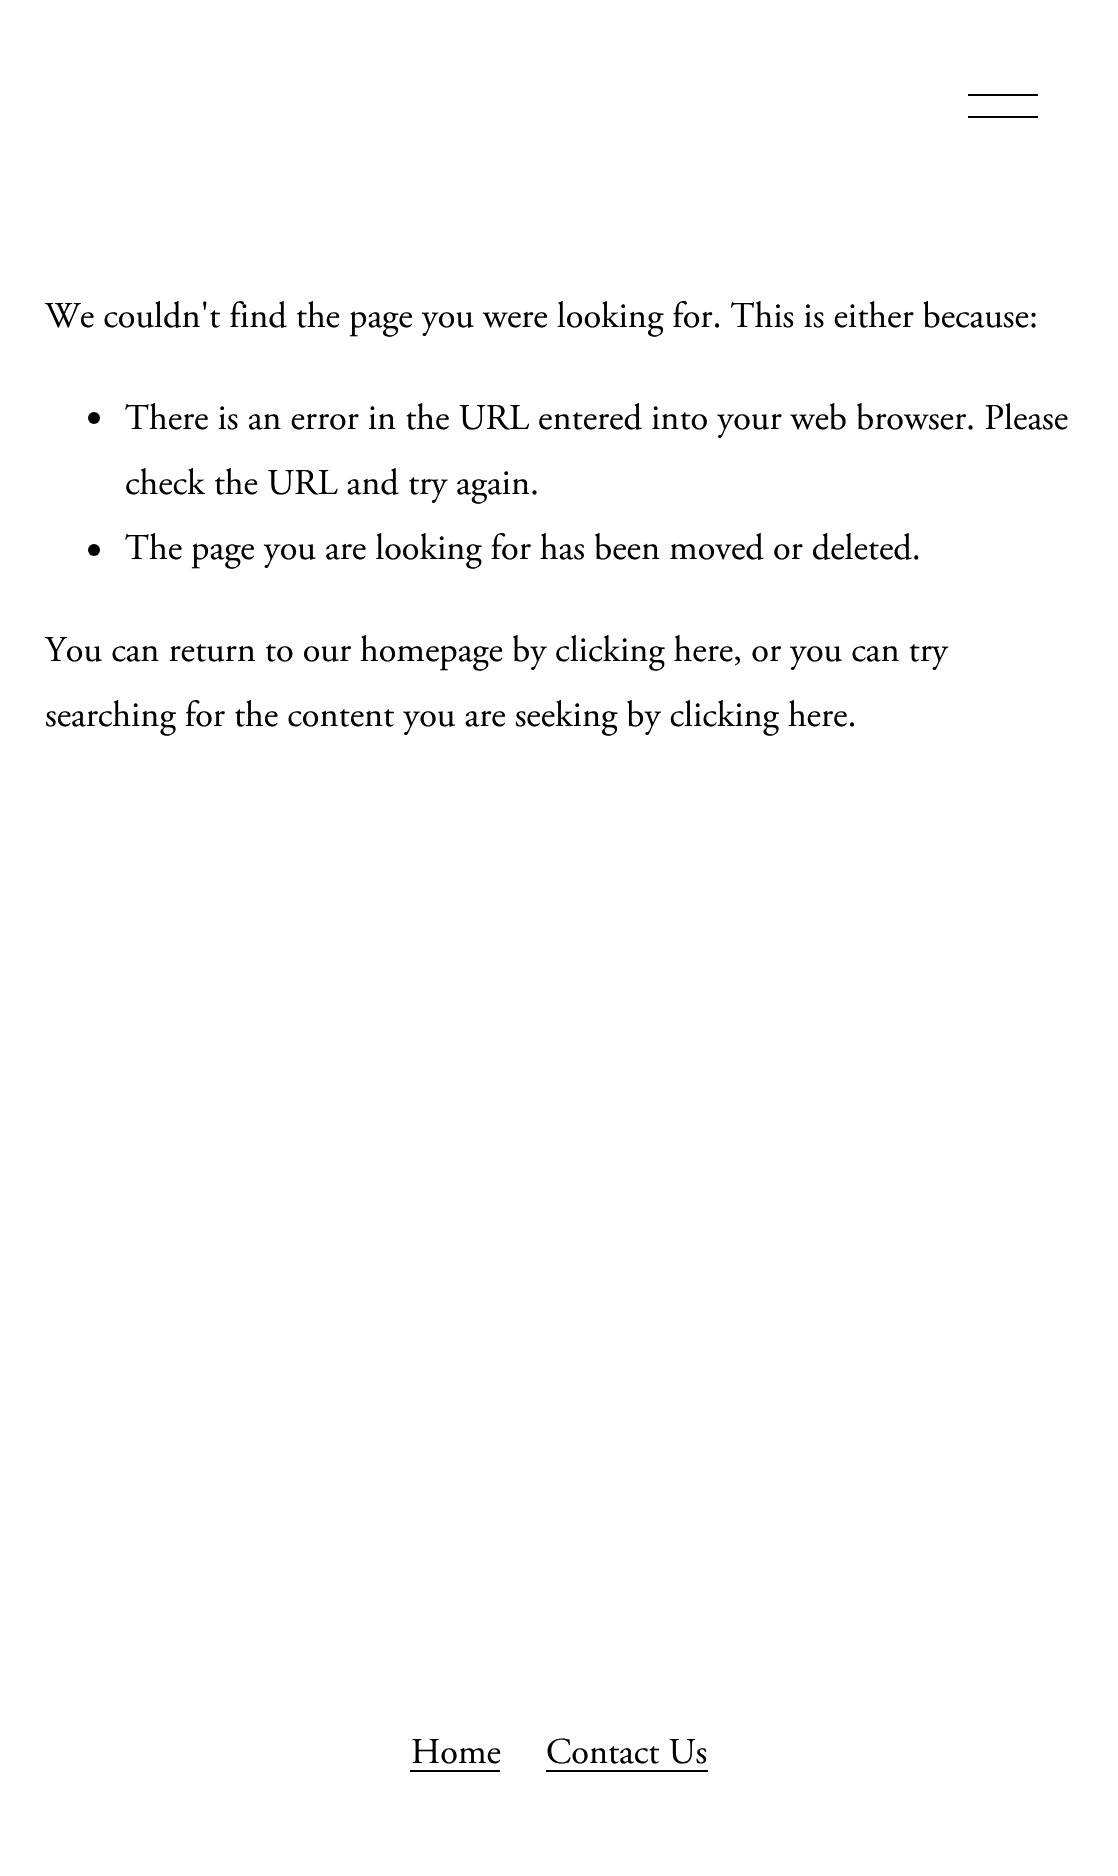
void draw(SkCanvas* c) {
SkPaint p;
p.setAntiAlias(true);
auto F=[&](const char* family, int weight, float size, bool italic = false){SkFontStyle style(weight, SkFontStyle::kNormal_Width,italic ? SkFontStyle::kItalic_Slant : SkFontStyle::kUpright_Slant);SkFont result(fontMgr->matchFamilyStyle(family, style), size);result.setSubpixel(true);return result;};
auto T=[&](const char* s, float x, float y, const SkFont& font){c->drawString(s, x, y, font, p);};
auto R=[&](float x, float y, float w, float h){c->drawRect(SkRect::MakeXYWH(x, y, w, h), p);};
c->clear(0xffffffff);
p.setColor(0xff000000);
R(968,94,70,2);
R(968,116,70,2);
auto f1 = F("Adobe Garamond",400,36.3);
T("We couldn't find the page you were looking for. This is either because:",45,327,f1);
c->drawCircle(94,418,6,p);
T("There is an error in the URL entered into your web browser. Please",125,429,f1);
T("check the URL and try again.",125,494,f1);
c->drawCircle(94,550,6,p);
T("The page you are looking for has been moved or deleted.",125,559,f1);
T("You can return to our homepage by clicking here, or you can try",45,661,f1);
T("searching for the content you are seeking by clicking here.",45,726,f1);
T("Home",411,1763,f1);
R(410,1770,90,2);
T("Contact Us",546,1763,f1);
R(546,1770,162,2);
}
